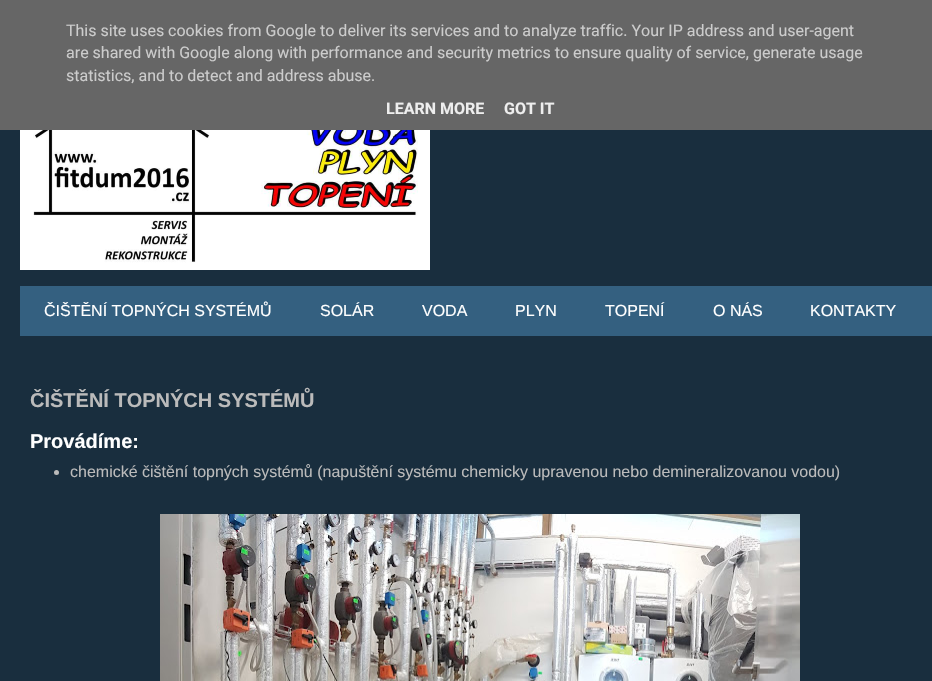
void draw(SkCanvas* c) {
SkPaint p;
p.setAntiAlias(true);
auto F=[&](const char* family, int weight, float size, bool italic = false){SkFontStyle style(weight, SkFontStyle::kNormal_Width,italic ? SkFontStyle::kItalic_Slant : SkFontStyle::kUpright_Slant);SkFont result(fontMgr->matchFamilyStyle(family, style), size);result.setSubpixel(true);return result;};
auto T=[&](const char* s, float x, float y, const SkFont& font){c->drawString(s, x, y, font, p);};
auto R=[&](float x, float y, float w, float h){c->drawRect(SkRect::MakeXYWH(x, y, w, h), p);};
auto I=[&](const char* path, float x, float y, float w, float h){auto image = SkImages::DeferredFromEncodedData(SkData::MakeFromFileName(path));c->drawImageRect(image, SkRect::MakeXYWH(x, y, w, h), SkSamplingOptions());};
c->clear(0xff192e3e);
p.setColor(0xff666666);
R(0,0,932,130);
auto f1 = F("Roboto",400,16);
p.setColor(0xffcccccc);
T("This site uses cookies from Google to deliver its services and to analyze traffic. Your IP address and user-agent",66,36,f1);
T("are shared with Google along with performance and security metrics to ensure quality of service, generate usage",66,58,f1);
T("statistics, and to detect and address abuse.",66,81,f1);
auto f2 = F("Roboto",700,16);
p.setColor(0xffeeeeee);
T("LEARN MORE",386,114,f2);
T("GOT IT",504,114,f2);
I("1.png",20,130,410,140);
p.setColor(0xff346080);
R(20,286,912,50);
auto f3 = F("Liberation Sans",400,16);
p.setColor(0xffffffff);
T("ČIŠTĚNÍ TOPNÝCH SYSTÉMŮ",44,316,f3);
T("SOLÁR",320,316,f3);
T("VODA",422,316,f3);
T("PLYN",515,316,f3);
T("TOPENÍ",605,316,f3);
T("O NÁS",713,316,f3);
T("KONTAKTY",810,316,f3);
auto f4 = F("Liberation Sans",700,20);
p.setColor(0xffbbbbbb);
T("ČIŠTĚNÍ TOPNÝCH SYSTÉMŮ",30,407,f4);
p.setColor(0xffffffff);
T("Provádíme:",30,448,f4);
p.setColor(0xffbbbbbb);
c->drawCircle(56.5,472.5,2.5,p);
T("chemické čištění topných systémů (napuštění systému chemicky upravenou nebo demineralizovanou vodou)",70,477,f3);
I("2.png",160,514,640,167);
}
